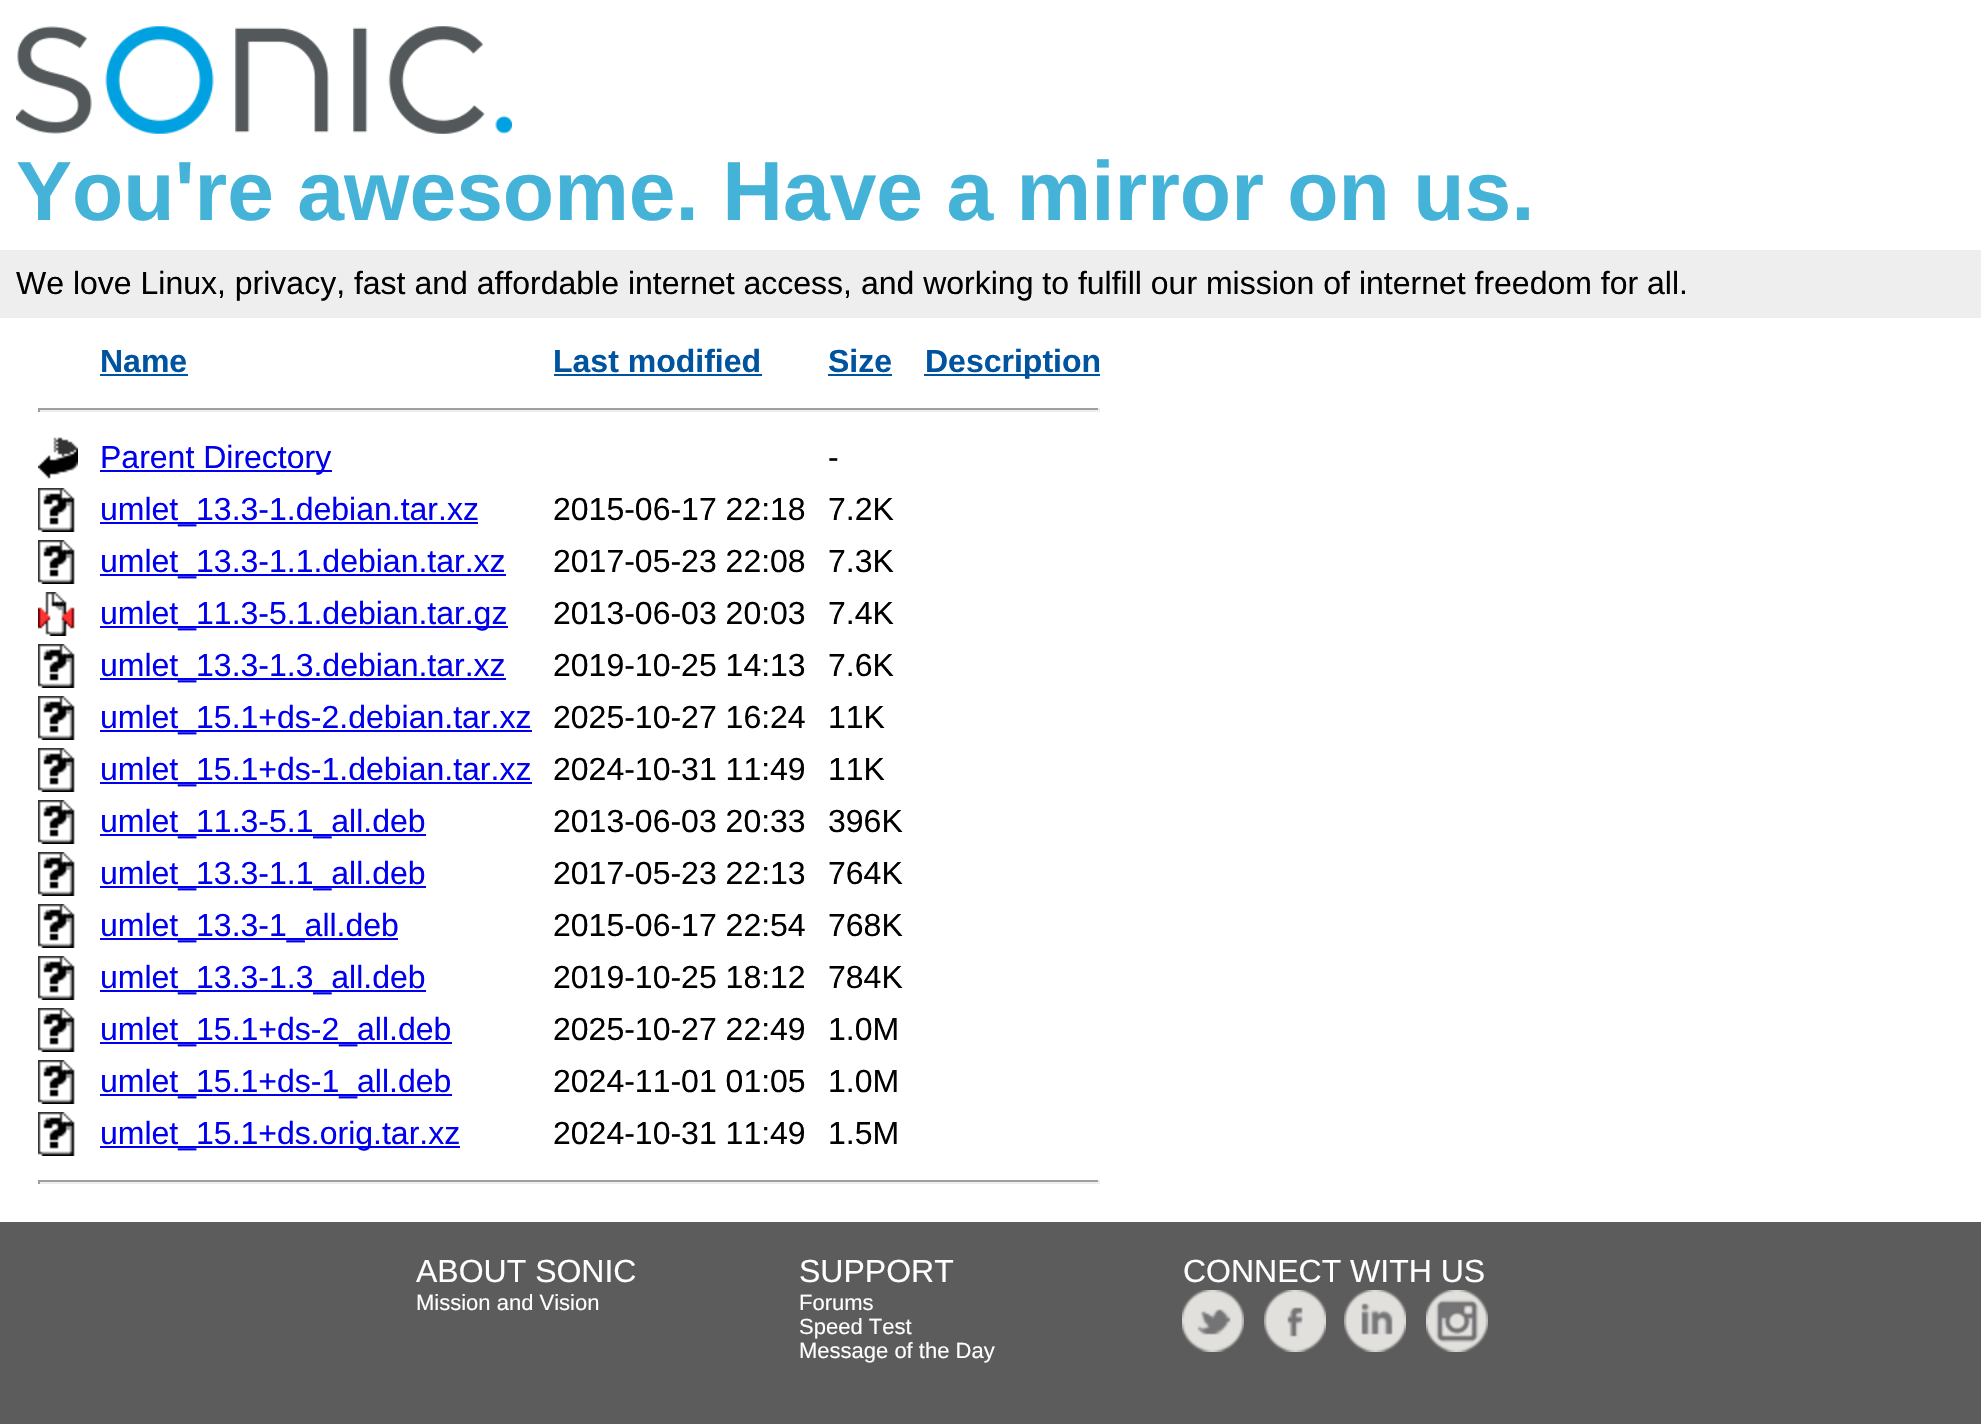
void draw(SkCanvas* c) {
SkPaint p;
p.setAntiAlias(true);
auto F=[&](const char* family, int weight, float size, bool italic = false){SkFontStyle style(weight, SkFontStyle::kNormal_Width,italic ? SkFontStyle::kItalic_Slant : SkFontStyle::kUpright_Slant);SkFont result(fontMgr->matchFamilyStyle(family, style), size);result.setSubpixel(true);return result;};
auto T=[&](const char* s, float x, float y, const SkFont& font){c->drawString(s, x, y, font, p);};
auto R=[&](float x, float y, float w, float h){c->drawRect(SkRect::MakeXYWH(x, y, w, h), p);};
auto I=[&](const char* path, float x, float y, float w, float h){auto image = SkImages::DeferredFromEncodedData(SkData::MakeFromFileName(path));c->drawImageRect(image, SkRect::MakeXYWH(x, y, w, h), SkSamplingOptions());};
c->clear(0xffffffff);
I("1.png",16,26,496,108);
auto f1 = F("Liberation Sans",700,84);
p.setColor(0xff45b3d8);
T("You're awesome. Have a mirror on us.",16,220,f1);
p.setColor(0xffeeeeee);
R(0,250,1981,68);
auto f2 = F("Liberation Sans",400,32);
p.setColor(0xff000000);
T("We love Linux, privacy, fast and affordable internet access, and working to fulfill our mission of internet freedom for all.",16,294,f2);
auto f3 = F("Liberation Sans",700,32);
p.setColor(0xff00549f);
T("Name",100,372,f3);
R(100,374,88,2);
T("Last modified",553,372,f3);
R(554,374,208,2);
T("Size",828,372,f3);
R(828,374,64,2);
R(924,374,176,2);
T("Description",925,372,f3);
p.setColor(0xff9f9f9f);
R(38,408,1062,2);
p.setColor(0xffeeeeee);
R(1098,408,2,4);
R(38,410,1062,2);
p.setColor(0xff9f9f9f);
R(38,408,2,4);
I("2.png",38,437,40,42);
p.setColor(0xff0000ee);
R(100,470,232,2);
T("Parent Directory",100,468,f2);
p.setColor(0xff000000);
T("-",828,468,f2);
I("3.png",38,488,37,44);
p.setColor(0xff0000ee);
R(100,522,378,2);
T("umlet_13.3-1.debian.tar.xz",100,520,f2);
p.setColor(0xff000000);
T("2015-06-17 22:18",553,520,f2);
T("7.2K",828,520,f2);
I("3.png",38,540,37,44);
p.setColor(0xff0000ee);
R(100,574,406,2);
T("umlet_13.3-1.1.debian.tar.xz",100,572,f2);
p.setColor(0xff000000);
T("2017-05-23 22:08",553,572,f2);
T("7.3K",828,572,f2);
I("4.png",38,592,37,44);
p.setColor(0xff0000ee);
R(100,626,408,2);
T("umlet_11.3-5.1.debian.tar.gz",100,624,f2);
p.setColor(0xff000000);
T("2013-06-03 20:03",553,624,f2);
T("7.4K",828,624,f2);
I("3.png",38,644,37,44);
p.setColor(0xff0000ee);
R(100,678,406,2);
T("umlet_13.3-1.3.debian.tar.xz",100,676,f2);
p.setColor(0xff000000);
T("2019-10-25 14:13",553,676,f2);
T("7.6K",828,676,f2);
I("3.png",38,696,37,44);
p.setColor(0xff0000ee);
R(100,730,432,2);
T("umlet_15.1+ds-2.debian.tar.xz",100,728,f2);
p.setColor(0xff000000);
T("2025-10-27 16:24",553,728,f2);
T("11K",828,728,f2);
I("3.png",38,748,37,44);
p.setColor(0xff0000ee);
R(100,782,432,2);
T("umlet_15.1+ds-1.debian.tar.xz",100,780,f2);
p.setColor(0xff000000);
T("2024-10-31 11:49",553,780,f2);
T("11K",828,780,f2);
I("3.png",38,800,37,44);
p.setColor(0xff0000ee);
R(100,834,326,2);
T("umlet_11.3-5.1_all.deb",100,832,f2);
p.setColor(0xff000000);
T("2013-06-03 20:33",553,832,f2);
T("396K",828,832,f2);
I("3.png",38,852,37,44);
p.setColor(0xff0000ee);
R(100,886,326,2);
T("umlet_13.3-1.1_all.deb",100,884,f2);
p.setColor(0xff000000);
T("2017-05-23 22:13",553,884,f2);
T("764K",828,884,f2);
I("3.png",38,904,37,44);
p.setColor(0xff0000ee);
R(100,938,298,2);
T("umlet_13.3-1_all.deb",100,936,f2);
p.setColor(0xff000000);
T("2015-06-17 22:54",553,936,f2);
T("768K",828,936,f2);
I("3.png",38,956,37,44);
p.setColor(0xff0000ee);
R(100,990,326,2);
T("umlet_13.3-1.3_all.deb",100,988,f2);
p.setColor(0xff000000);
T("2019-10-25 18:12",553,988,f2);
T("784K",828,988,f2);
I("3.png",38,1008,37,44);
p.setColor(0xff0000ee);
R(100,1042,352,2);
T("umlet_15.1+ds-2_all.deb",100,1040,f2);
p.setColor(0xff000000);
T("2025-10-27 22:49",553,1040,f2);
T("1.0M",828,1040,f2);
I("3.png",38,1060,37,44);
p.setColor(0xff0000ee);
R(100,1094,352,2);
T("umlet_15.1+ds-1_all.deb",100,1092,f2);
p.setColor(0xff000000);
T("2024-11-01 01:05",553,1092,f2);
T("1.0M",828,1092,f2);
I("3.png",38,1112,37,44);
p.setColor(0xff0000ee);
R(100,1146,360,2);
T("umlet_15.1+ds.orig.tar.xz",100,1144,f2);
p.setColor(0xff000000);
T("2024-10-31 11:49",553,1144,f2);
T("1.5M",828,1144,f2);
p.setColor(0xff9f9f9f);
R(38,1180,1062,2);
p.setColor(0xffeeeeee);
R(1098,1180,2,4);
R(38,1182,1062,2);
p.setColor(0xff9f9f9f);
R(38,1180,2,4);
p.setColor(0xff5c5c5c);
R(0,1222,1981,202);
p.setColor(0xffffffff);
T("ABOUT SONIC",416,1282,f2);
auto f4 = F("Liberation Sans",400,22);
T("Mission and Vision",416,1310,f4);
T("SUPPORT",799,1282,f2);
T("Forums",799,1310,f4);
T("Speed Test",799,1334,f4);
T("Message of the Day",799,1358,f4);
T("CONNECT WITH US",1183,1282,f2);
I("5.png",1182,1290,62,62);
I("6.png",1264,1290,62,62);
I("7.png",1344,1290,62,62);
I("8.png",1426,1290,62,62);
}
